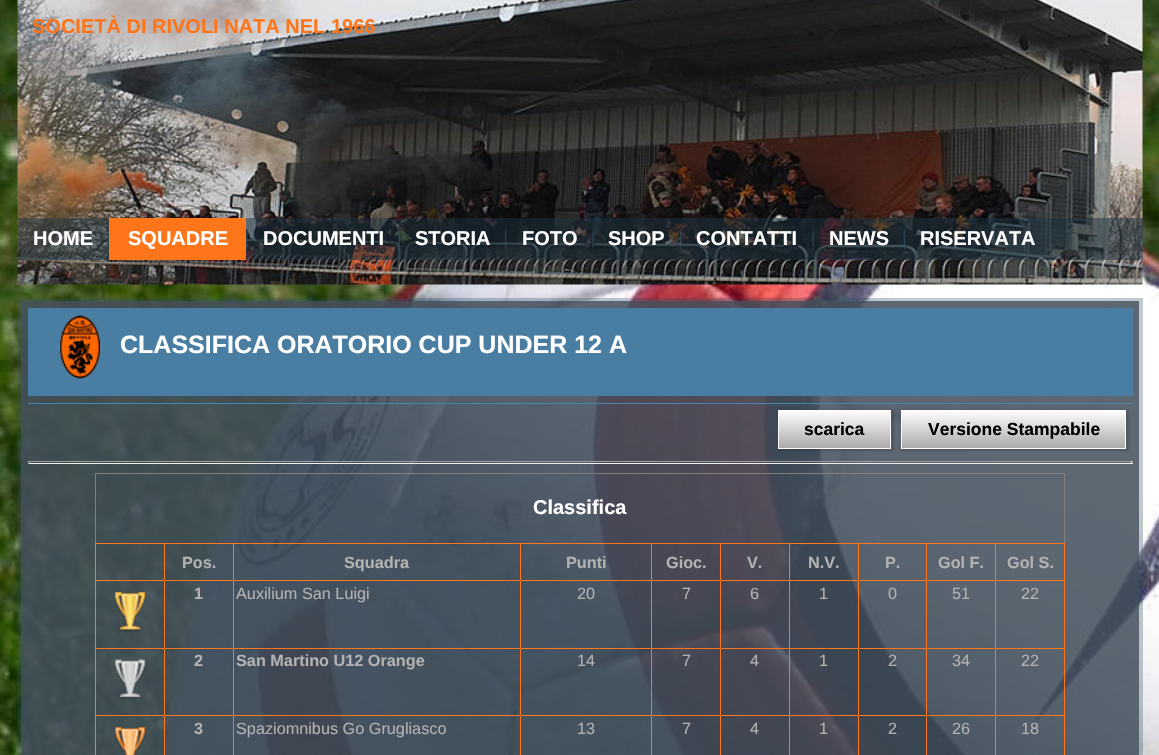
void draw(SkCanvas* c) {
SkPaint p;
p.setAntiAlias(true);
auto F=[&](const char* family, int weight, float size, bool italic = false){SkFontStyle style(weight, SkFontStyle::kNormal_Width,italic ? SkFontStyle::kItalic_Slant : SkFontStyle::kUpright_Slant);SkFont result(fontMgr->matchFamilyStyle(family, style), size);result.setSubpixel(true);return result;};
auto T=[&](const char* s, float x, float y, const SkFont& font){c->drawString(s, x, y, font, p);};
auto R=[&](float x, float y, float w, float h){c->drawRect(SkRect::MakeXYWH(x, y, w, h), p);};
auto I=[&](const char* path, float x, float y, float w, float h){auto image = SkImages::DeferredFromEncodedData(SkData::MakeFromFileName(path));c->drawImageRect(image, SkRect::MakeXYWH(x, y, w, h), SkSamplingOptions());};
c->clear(0xffffffff);
I("1.png",0,0,1159,755);
I("2.png",17,0,1126,285);
auto f1 = F("Liberation Sans",700,20);
p.setColor(0xffff751a);
T("SOCIETÀ DI RIVOLI NATA NEL 1966",32,33,f1);
p.setColor(0x801c313f);
R(18,218,1125,42);
p.setColor(0xffffffff);
T("HOME",33,245,f1);
I("3.png",107,228,2,22);
p.setColor(0xffff751a);
R(109,218,137,42);
p.setColor(0xffffffff);
T("SQUADRE",128,245,f1);
I("4.png",246,227,2,23);
T("DOCUMENTI",263,245,f1);
I("5.png",398,227,2,22);
T("STORIA",415,245,f1);
I("6.png",505,227,2,24);
T("FOTO",522,245,f1);
I("7.png",592,227,2,23);
T("SHOP",608,245,f1);
I("8.png",680,227,2,24);
T("CONTATTI",696,245,f1);
I("9.png",812,227,2,23);
T("NEWS",829,245,f1);
I("10.png",903,227,2,24);
T("RISERVATA",920,245,f1);
p.setColor(0x4d2c4d63);
R(18,298,1125,457);
p.setColor(0xcc434f5b);
R(21,301,1118,454);
p.setColor(0xff497ea2);
R(28,308,1105,88);
I("11.png",58,315,44,64);
auto f2 = F("Liberation Sans",700,25);
p.setColor(0xffffffff);
T("CLASSIFICA ORATORIO CUP UNDER 12 A",120,353,f2);
p.setColor(0xff4c84a9);
R(28,403,1105,1);
p.setColor(0x26000000);
p.setMaskFilter(SkMaskFilter::MakeBlur(kNormal_SkBlurStyle, 1));
c->drawRect(SkRect::MakeXYWH(778,410,116,41),p);
p.setMaskFilter(nullptr);
{
const SkColor colors[] = {0xffffffff,0xffa8a8a8};
const float stops[] = {0,1};
const SkPoint ends[] = {{834,410}, {834,449}};
p.setShader(SkGradientShader::MakeLinear(ends, colors, stops, 2, SkTileMode::kClamp));
p.setAlpha(255);
}
R(779,411,111,37);
p.setStroke(true);
p.setStrokeWidth(1);
p.setShader(nullptr);
p.setColor(0xffffffff);
c->drawRect(SkRect::MakeXYWH(778.5,410.5,112,38),p);
auto f3 = F("Liberation Sans",700,17.5);
p.setStroke(false);
p.setColor(0xff000000);
T("scarica",804,435,f3);
p.setColor(0x26000000);
p.setMaskFilter(SkMaskFilter::MakeBlur(kNormal_SkBlurStyle, 1));
c->drawRect(SkRect::MakeXYWH(901,410,228,41),p);
p.setMaskFilter(nullptr);
{
const SkColor colors[] = {0xffffffff,0xffa8a8a8};
const float stops[] = {0,1};
const SkPoint ends[] = {{1014,410}, {1014,449}};
p.setShader(SkGradientShader::MakeLinear(ends, colors, stops, 2, SkTileMode::kClamp));
p.setAlpha(255);
}
R(902,411,223,37);
p.setStroke(true);
p.setShader(nullptr);
p.setColor(0xffffffff);
c->drawRect(SkRect::MakeXYWH(901.5,410.5,224,38),p);
p.setStroke(false);
p.setColor(0xff000000);
T("Versione Stampabile",928,435,f3);
p.setColor(0xff9f9f9f);
R(28,461,1105,1);
p.setColor(0xffeeeeee);
R(1131,461,1,3);
R(28,463,1105,1);
p.setColor(0xff9f9f9f);
R(28,461,1,3);
p.setColor(0xff808080);
R(95,473,970,1);
R(1064,473,1,70);
R(95,473,1,70);
p.setColor(0xffffffff);
T("Classifica",533,514,f1);
p.setColor(0xffff751a);
R(995,543,70,1);
R(995,580,70,1);
R(995,648,70,1);
R(995,715,70,1);
R(995,715,1,40);
R(926,715,70,1);
R(995,648,1,68);
R(926,648,70,1);
R(995,580,1,69);
R(926,580,70,1);
R(995,543,1,38);
R(926,543,70,1);
R(926,715,1,40);
R(858,715,70,1);
R(926,648,1,68);
R(858,648,70,1);
R(926,580,1,69);
R(858,580,70,1);
R(926,543,1,38);
R(858,543,70,1);
R(858,715,1,40);
R(789,715,70,1);
R(858,648,1,68);
R(789,648,70,1);
R(858,580,1,69);
R(789,580,70,1);
R(858,543,1,38);
R(789,543,70,1);
R(789,715,1,40);
R(720,715,70,1);
R(789,648,1,68);
R(720,648,70,1);
R(789,580,1,69);
R(720,580,70,1);
R(789,543,1,38);
R(720,543,70,1);
R(720,715,1,40);
R(651,715,70,1);
R(720,648,1,68);
R(651,648,70,1);
R(720,580,1,69);
R(651,580,70,1);
R(720,543,1,38);
R(651,543,70,1);
R(651,715,1,40);
R(520,715,133,1);
R(651,648,1,68);
R(520,648,133,1);
R(651,580,1,69);
R(520,580,133,1);
R(651,543,1,38);
R(520,543,133,1);
R(520,715,1,40);
R(233,715,288,1);
R(520,648,1,68);
R(233,648,288,1);
R(520,580,1,69);
R(233,580,288,1);
R(520,543,1,38);
R(233,543,288,1);
R(233,715,1,40);
R(164,715,70,1);
R(233,648,1,68);
R(164,648,70,1);
R(233,580,1,69);
R(164,580,70,1);
R(233,543,1,38);
R(164,543,70,1);
R(164,715,1,40);
R(95,715,70,1);
R(164,648,1,68);
R(95,648,70,1);
R(164,580,1,69);
R(95,580,70,1);
R(164,543,1,38);
R(95,543,70,1);
R(95,715,1,40);
R(95,648,1,68);
R(95,580,1,69);
R(95,543,1,38);
auto f4 = F("Liberation Sans",700,16.25);
p.setColor(0xffb2b2b2);
T("Pos.",182,568,f4);
T("Squadra",344,568,f4);
T("Punti",566,568,f4);
T("Gioc.",666,568,f4);
T("V.",747,568,f4);
T("N.V.",808,568,f4);
T("P.",885,568,f4);
T("Gol F.",938,568,f4);
p.setColor(0xffff751a);
R(1064,715,1,40);
R(1064,648,1,68);
R(1064,580,1,69);
R(1064,543,1,38);
p.setColor(0xffb2b2b2);
T("Gol S.",1007,568,f4);
I("12.png",114,592,32,40);
T("1",194,599,f4);
auto f5 = F("Liberation Sans",400,16.25);
T("Auxilium San Luigi",236,599,f5);
T("20",577,599,f5);
T("7",682,599,f5);
T("6",750,599,f5);
T("1",819,599,f5);
T("0",888,599,f5);
T("51",952,599,f5);
T("22",1021,599,f5);
I("13.png",114,659,32,40);
T("2",194,666,f4);
T("San Martino U12 Orange",236,666,f4);
T("14",577,666,f5);
T("7",682,666,f5);
T("4",750,666,f5);
T("1",819,666,f5);
T("2",888,666,f5);
T("34",952,666,f5);
T("22",1021,666,f5);
I("14.png",114,727,32,28);
T("3",194,734,f4);
T("Spaziomnibus Go Grugliasco",236,734,f5);
T("13",577,734,f5);
T("7",682,734,f5);
T("4",750,734,f5);
T("1",819,734,f5);
T("2",888,734,f5);
T("26",952,734,f5);
T("18",1021,734,f5);
}
